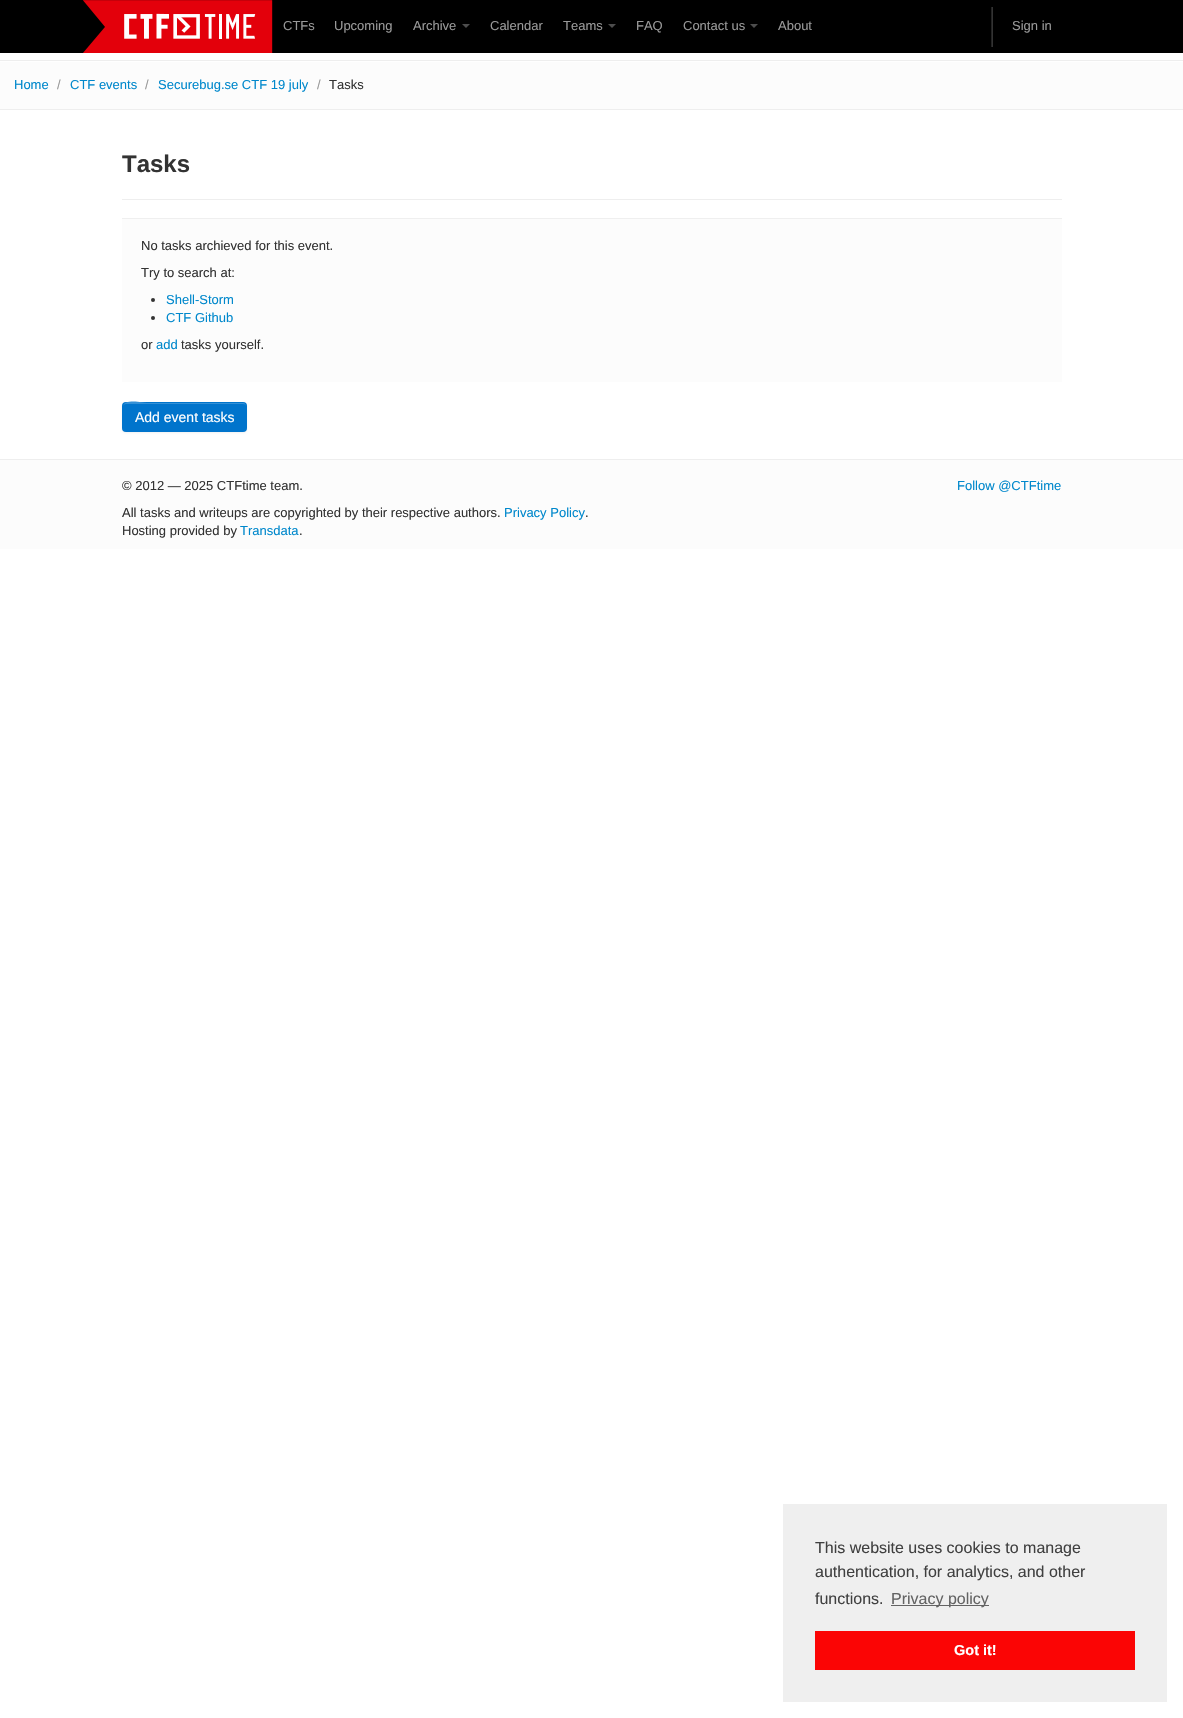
void draw(SkCanvas* c) {
SkPaint p;
p.setAntiAlias(true);
auto F=[&](const char* family, int weight, float size, bool italic = false){SkFontStyle style(weight, SkFontStyle::kNormal_Width,italic ? SkFontStyle::kItalic_Slant : SkFontStyle::kUpright_Slant);SkFont result(fontMgr->matchFamilyStyle(family, style), size);result.setSubpixel(true);return result;};
auto T=[&](const char* s, float x, float y, const SkFont& font){c->drawString(s, x, y, font, p);};
auto R=[&](float x, float y, float w, float h){c->drawRect(SkRect::MakeXYWH(x, y, w, h), p);};
auto Q=[&](float x, float y, float w, float h, float radius){c->drawRoundRect(SkRect::MakeXYWH(x, y, w, h), radius, radius, p);};
auto I=[&](const char* path, float x, float y, float w, float h){auto image = SkImages::DeferredFromEncodedData(SkData::MakeFromFileName(path));c->drawImageRect(image, SkRect::MakeXYWH(x, y, w, h), SkSamplingOptions());};
auto P=[&](const char* data, bool evenOdd = false){SkPath result = *SkParsePath::FromSVGString(data);if (evenOdd) result.setFillType(SkPathFillType::kEvenOdd);return result;};
c->clear(0xffffffff);
p.setColor(0xff000000);
R(0,0,1183,53);
I("1.png",83,0,190,53);
auto f1 = F("Liberation Sans",400,13);
p.setColor(0xff999999);
T("CTFs",283,30,f1);
T("Upcoming",334,30,f1);
T("Archive",413,30,f1);
p.setColor(0xff4d4d4d);
c->drawPath(P("M462 24h8l-4 4z"),p);
p.setColor(0xff999999);
T("Calendar",490,30,f1);
T("Teams",563,30,f1);
p.setColor(0xff4d4d4d);
c->drawPath(P("M608 24h8l-4 4z"),p);
p.setColor(0xff999999);
T("FAQ",636,30,f1);
T("Contact us",683,30,f1);
p.setColor(0xff4d4d4d);
c->drawPath(P("M750 24h8l-4 4z"),p);
p.setColor(0xff999999);
T("About",778,30,f1);
p.setColor(0xff222222);
R(991,7,1,40);
p.setColor(0xff333333);
R(992,7,1,40);
p.setColor(0xff999999);
T("Sign in",1012,30,f1);
p.setColor(0xfffcfcfc);
R(0,62,1183,47);
p.setColor(0xffeeeeee);
R(0,60,1183,1);
R(0,109,1183,1);
p.setColor(0xff0088cc);
T("Home",14,89,f1);
p.setColor(0xff999999);
T("/",57,89,f1);
p.setColor(0xff0088cc);
T("CTF events",70,89,f1);
p.setColor(0xff999999);
T("/",145,89,f1);
p.setColor(0xff0088cc);
T("Securebug.se CTF 19 july",158,89,f1);
p.setColor(0xff999999);
T("/",317,89,f1);
p.setColor(0xff333333);
T("Tasks",329,89,f1);
p.setColor(0xffeeeeee);
R(122,199,940,1);
auto f2 = F("Liberation Sans",700,24);
p.setColor(0xff333333);
T("Tasks",122,172,f2);
p.setColor(0xfffcfcfc);
R(122,219,940,163);
p.setColor(0xffefefef);
R(122,218,940,1);
p.setColor(0xff333333);
T("No tasks archieved for this event.",141,250,f1);
T("Try to search at:",141,277,f1);
c->drawCircle(153,300,2,p);
p.setColor(0xff0088cc);
T("Shell-Storm",166,304,f1);
p.setColor(0xff333333);
c->drawCircle(153,318,2,p);
p.setColor(0xff0088cc);
T("CTF Github",166,322,f1);
p.setColor(0xff333333);
T("or",141,349,f1);
p.setColor(0xff0088cc);
T("add",156,349,f1);
p.setColor(0xff333333);
T("tasks yourself.",181,349,f1);
p.setColor(0x0d000000);
p.setMaskFilter(SkMaskFilter::MakeBlur(kNormal_SkBlurStyle, 1));
c->drawRoundRect(SkRect::MakeXYWH(122,403,125,30),4,4,p);
p.setMaskFilter(nullptr);
p.setColor(0xff0074cc);
Q(122,402,125,30,4);
p.setColor(0xff3390d6);
c->drawPath(P("M126 404h117c2 0 3 1 3 3c0-2-1-4-3-4h-97c-1 0-23-5-23 4c0-2 1-3 3-3z"),p);
auto f3 = F("Liberation Sans",400,14);
p.setColor(0xffffffff);
T("Add event tasks",135,422,f3);
p.setColor(0xfffcfcfc);
R(0,460,1183,89);
p.setColor(0xffeeeeee);
R(0,459,1183,1);
p.setColor(0xff333333);
T("© 2012 — 2025 CTFtime team.",122,490,f1);
p.setColor(0xff0088cc);
T("Follow @CTFtime",957,490,f1);
p.setColor(0xff333333);
T("All tasks and writeups are copyrighted by their respective authors.",122,517,f1);
p.setColor(0xff0088cc);
T("Privacy Policy",504,517,f1);
p.setColor(0xff333333);
T(".",585,517,f1);
T("Hosting provided by",122,535,f1);
p.setColor(0xff0088cc);
T("Transdata",240,535,f1);
p.setColor(0xff333333);
T(".",299,535,f1);
p.setColor(0xffefefef);
R(783,1504,384,198);
auto f4 = F("Liberation Sans",400,16);
p.setColor(0xff404040);
T("This website uses cookies to manage",815,1553,f4);
T("authentication, for analytics, and other",815,1577,f4);
T("functions.",815,1604,f4);
p.setColor(0xff636363);
R(891,1605,98,1);
T("Privacy policy",891,1604,f4);
p.setColor(0xfffb0505);
R(815,1631,320,39);
auto f5 = F("Liberation Sans",700,14.5);
p.setColor(0xffffffff);
T("Got it!",954,1655,f5);
}
